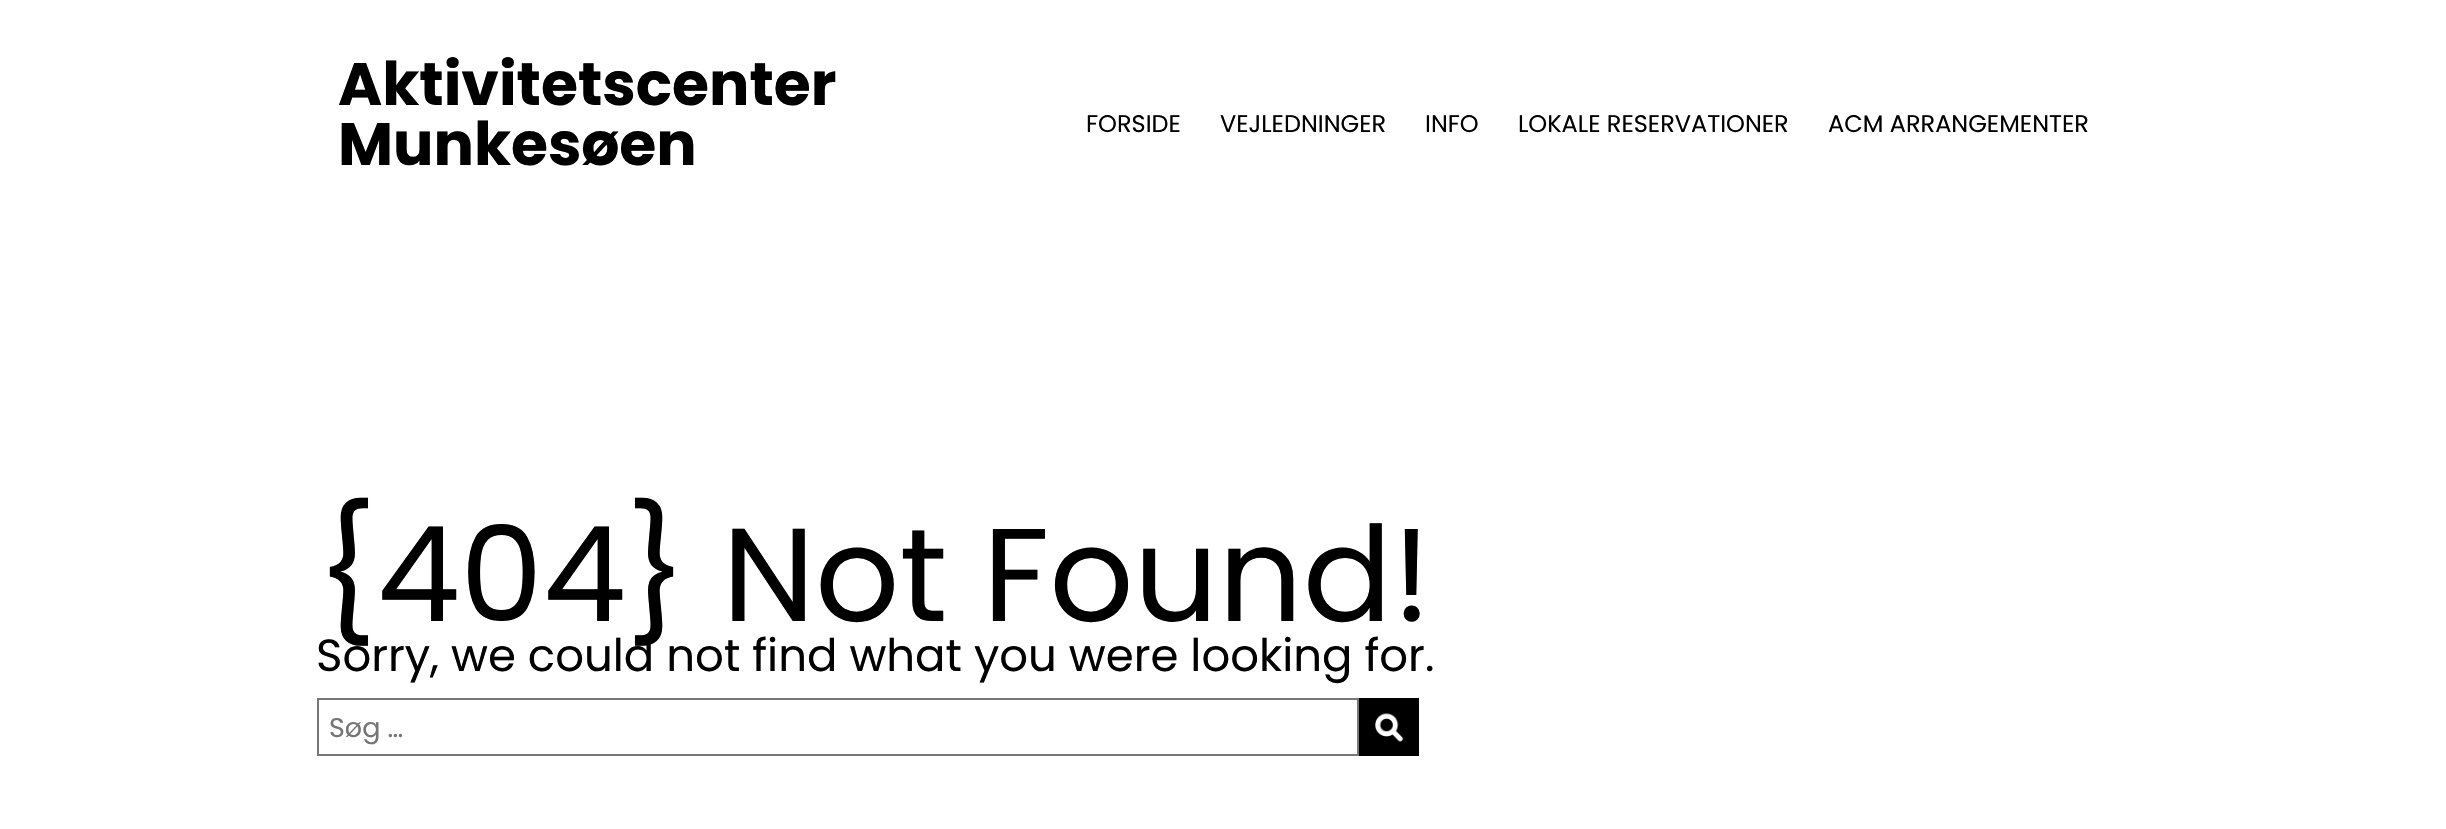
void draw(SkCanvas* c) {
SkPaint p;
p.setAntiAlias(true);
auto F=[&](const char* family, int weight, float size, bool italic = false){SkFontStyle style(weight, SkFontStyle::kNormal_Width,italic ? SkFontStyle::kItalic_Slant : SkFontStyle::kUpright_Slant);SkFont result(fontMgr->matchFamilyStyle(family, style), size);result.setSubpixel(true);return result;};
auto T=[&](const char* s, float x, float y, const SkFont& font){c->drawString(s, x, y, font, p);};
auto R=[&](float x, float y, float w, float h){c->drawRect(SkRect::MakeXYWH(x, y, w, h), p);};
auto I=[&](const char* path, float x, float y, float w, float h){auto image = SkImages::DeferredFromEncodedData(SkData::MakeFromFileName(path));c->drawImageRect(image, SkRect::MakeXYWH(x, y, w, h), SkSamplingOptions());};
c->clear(0xffffffff);
auto f1 = F("Poppins",700,60);
p.setColor(0xff000000);
T("Aktivitetscenter",338,105,f1);
T("Munkesøen",338,165,f1);
auto f2 = F("Poppins",400,24);
T("FORSIDE",1086,132,f2);
T("VEJLEDNINGER",1220,132,f2);
T("INFO",1425,132,f2);
T("LOKALE RESERVATIONER",1518,132,f2);
T("ACM ARRANGEMENTER",1828,132,f2);
auto f3 = F("Poppins",400,132);
T("{404} Not Found!",316,621,f3);
auto f4 = F("Poppins",400,45);
T("Sorry, we could not find what you were looking for.",316,671,f4);
p.setStroke(true);
p.setStrokeWidth(2);
p.setColor(0xff777777);
c->drawRect(SkRect::MakeXYWH(318,699,1040,56),p);
auto f5 = F("Poppins",400,27);
p.setStroke(false);
p.setColor(0xff757575);
T("Søg …",329,737,f5);
p.setColor(0xff000000);
R(1359,698,60,58);
I("1.png",1375,713,29,29);
}
